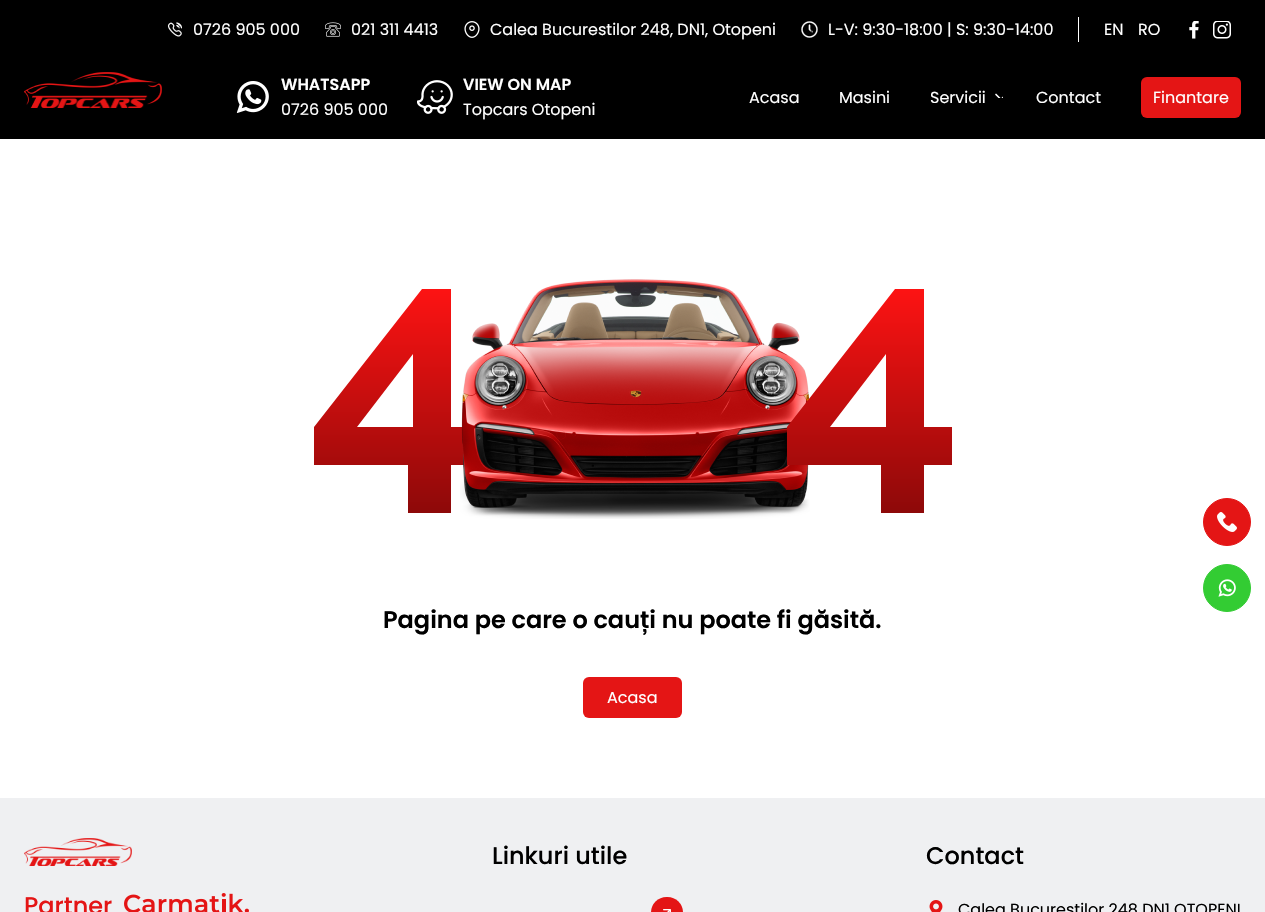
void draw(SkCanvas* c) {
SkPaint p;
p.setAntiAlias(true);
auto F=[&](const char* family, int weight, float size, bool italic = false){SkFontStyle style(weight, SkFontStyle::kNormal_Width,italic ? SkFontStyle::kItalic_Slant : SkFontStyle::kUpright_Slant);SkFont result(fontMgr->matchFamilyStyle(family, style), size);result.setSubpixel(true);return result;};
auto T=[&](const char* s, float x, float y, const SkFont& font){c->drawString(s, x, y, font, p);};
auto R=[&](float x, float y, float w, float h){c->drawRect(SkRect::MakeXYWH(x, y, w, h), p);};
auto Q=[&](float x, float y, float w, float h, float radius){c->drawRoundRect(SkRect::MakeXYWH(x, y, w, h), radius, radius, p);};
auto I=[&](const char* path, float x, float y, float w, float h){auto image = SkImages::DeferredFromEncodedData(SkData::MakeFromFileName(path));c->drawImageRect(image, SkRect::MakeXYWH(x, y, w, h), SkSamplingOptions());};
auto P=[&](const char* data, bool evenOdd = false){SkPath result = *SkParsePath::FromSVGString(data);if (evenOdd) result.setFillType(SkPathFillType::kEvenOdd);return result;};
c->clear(0xffffffff);
p.setColor(0xff000000);
R(0,0,1265,139);
I("1.png",167,22,15,15);
auto f1 = F("Poppins",400,16);
p.setColor(0xffffffff);
T("0726 905 000",193,35,f1);
I("2.png",325,22,16,15);
T("021 311 4413",351,35,f1);
I("3.png",464,21,16,17);
T("Calea Bucurestilor 248, DN1, Otopeni",490,35,f1);
I("4.png",801,21,17,17);
T("L-V: 9:30-18:00 | S: 9:30-14:00",828,35,f1);
R(1078,17,1,25);
T("EN",1104,35,f1);
T("RO",1138,35,f1);
I("5.png",1189,21,10,18);
I("6.png",1213,21,18,18);
I("7.png",24,72,138,36);
I("8.png",236,81,33,32);
auto f2 = F("Poppins",600,16);
T("WHATSAPP",281,90,f2);
T("0726 905 000",281,115,f1);
I("9.png",417,80,36,34);
T("VIEW ON MAP",463,90,f2);
T("Topcars Otopeni",463,115,f1);
T("Acasa",749,103,f1);
T("Masini",839,103,f1);
T("Servicii",930,103,f1);
I("10.png",995,93,8,5);
T("Contact",1036,103,f1);
p.setColor(0xffe41515);
Q(1141,77,100,41,6);
p.setColor(0xffffffff);
T("Finantare",1153,103,f1);
p.setColor(0xffe41515);
c->drawCircle(1227,522,23.5,p);
p.setStroke(true);
p.setStrokeWidth(1);
c->drawCircle(1227,522,23.5,p);
I("11.png",1217,512,20,20);
p.setStroke(false);
p.setColor(0xff33cc33);
c->drawCircle(1227,588,23.5,p);
p.setStroke(true);
c->drawCircle(1227,588,23.5,p);
I("12.png",1218,579,18,18);
p.setStroke(false);
{
const SkColor colors[] = {0xfffd1313,0xff8d0909};
const float stops[] = {0,1};
const SkPoint ends[] = {{396,289}, {396,513}};
p.setShader(SkGradientShader::MakeLinear(ends, colors, stops, 2, SkTileMode::kClamp));
p.setAlpha(255);
}
c->drawPath(P("M408 513v-48h-94v-38l108-138h29v138h28v38h-28v48zm-51-86h56v-73z"),p);
I("13.png",460,279,350,240);
{
const SkColor colors[] = {0xfffd1313,0xff8d0909};
const float stops[] = {0,1};
const SkPoint ends[] = {{869,289}, {869,513}};
p.setShader(SkGradientShader::MakeLinear(ends, colors, stops, 2, SkTileMode::kClamp));
p.setAlpha(255);
}
c->drawPath(P("M881 513v-48h-94v-38l108-138h29v138h28v38h-28v48zm-51-86h56v-73z"),p);
auto f3 = F("Poppins",600,24);
p.setShader(nullptr);
p.setColor(0xff000000);
T("Pagina pe care o cauți nu poate fi găsită.",383,628,f3);
p.setColor(0xffe41515);
Q(583,677,99,41,6);
p.setColor(0xffffffff);
T("Acasa",607,703,f1);
p.setColor(0xffeff0f2);
R(0,798,1265,114);
I("14.png",24,838,108,28);
auto f4 = F("Poppins",500,24);
p.setColor(0xffe41515);
T("Partner",24,914,f4);
I("15.png",124,893,125,19);
p.setColor(0xff000000);
T("Linkuri utile",492,864,f4);
p.setColor(0xffe41515);
Q(651,897,32,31,16);
I("16.png",663,909,8,3);
p.setColor(0xff000000);
T("Contact",926,864,f4);
I("17.png",929,900,14,12);
T("Calea Bucurestilor 248 DN1 OTOPENI",958,915,f1);
}
